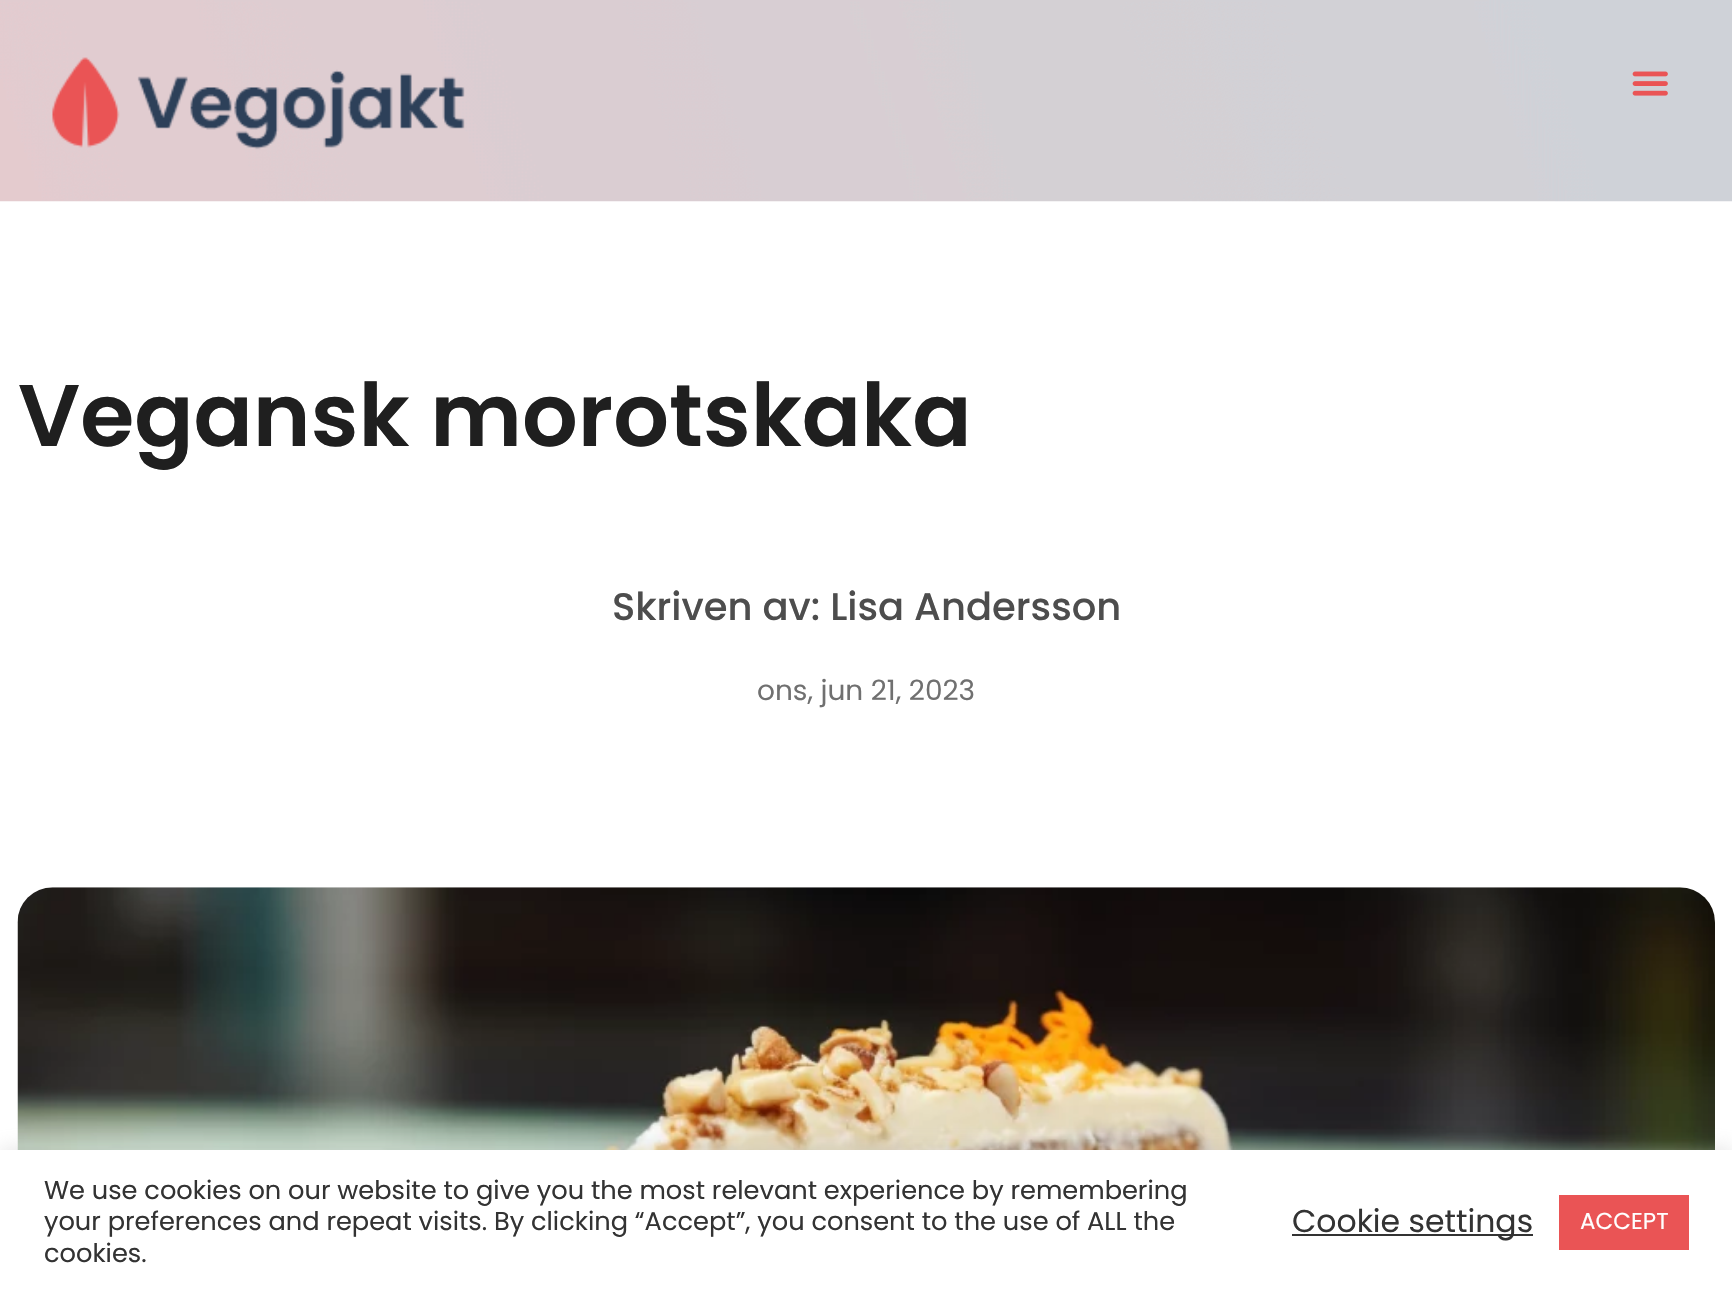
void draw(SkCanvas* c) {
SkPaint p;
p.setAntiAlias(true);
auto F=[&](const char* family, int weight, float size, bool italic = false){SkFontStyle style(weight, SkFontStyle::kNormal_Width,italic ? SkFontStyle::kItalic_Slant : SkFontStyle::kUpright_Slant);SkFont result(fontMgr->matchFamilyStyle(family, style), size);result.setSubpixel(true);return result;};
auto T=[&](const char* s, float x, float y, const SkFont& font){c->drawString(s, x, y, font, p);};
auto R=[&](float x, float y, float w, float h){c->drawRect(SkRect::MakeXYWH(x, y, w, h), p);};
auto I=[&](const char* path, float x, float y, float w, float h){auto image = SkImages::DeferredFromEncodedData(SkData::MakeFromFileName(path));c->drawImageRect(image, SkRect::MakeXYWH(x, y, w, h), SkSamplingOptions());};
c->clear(0xffffffff);
I("3.png",0,0,1732,202);
I("1.png",52,57,413,93);
I("2.png",1632,71,36,25);
auto f1 = F("Poppins",600,87.5);
p.setColor(0xff1f1f1f);
T("Vegansk morotskaka",18,446,f1);
auto f2 = F("Poppins",500,38.5);
p.setColor(0xff4d4d4d);
T("Skriven av: Lisa Andersson",612,620,f2);
auto f3 = F("Poppins",400,28);
p.setColor(0xff707070);
T("ons, jun 21, 2023",757,700,f3);
I("4.png",17,887,1698,263);
p.setColor(0x4dacabab);
p.setMaskFilter(SkMaskFilter::MakeBlur(kNormal_SkBlurStyle, 9));
c->drawRect(SkRect::MakeXYWH(0,1148,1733,144),p);
p.setMaskFilter(nullptr);
p.setColor(0xffffffff);
R(0,1150,1732,142);
auto f4 = F("Poppins",400,25.65);
p.setColor(0xff333333);
T("We use cookies on our website to give you the most relevant experience by remembering",44,1199,f4);
T("your preferences and repeat visits. By clicking “Accept”, you consent to the use of ALL the",44,1230,f4);
T("cookies.",44,1262,f4);
R(1292,1234,241,2);
auto f5 = F("Poppins",400,31.5);
T("Cookie settings",1292,1232,f5);
p.setColor(0xffea5455);
R(1559,1195,130,55);
auto f6 = F("Poppins",400,23);
p.setColor(0xffffffff);
T("ACCEPT",1580,1229,f6);
}
